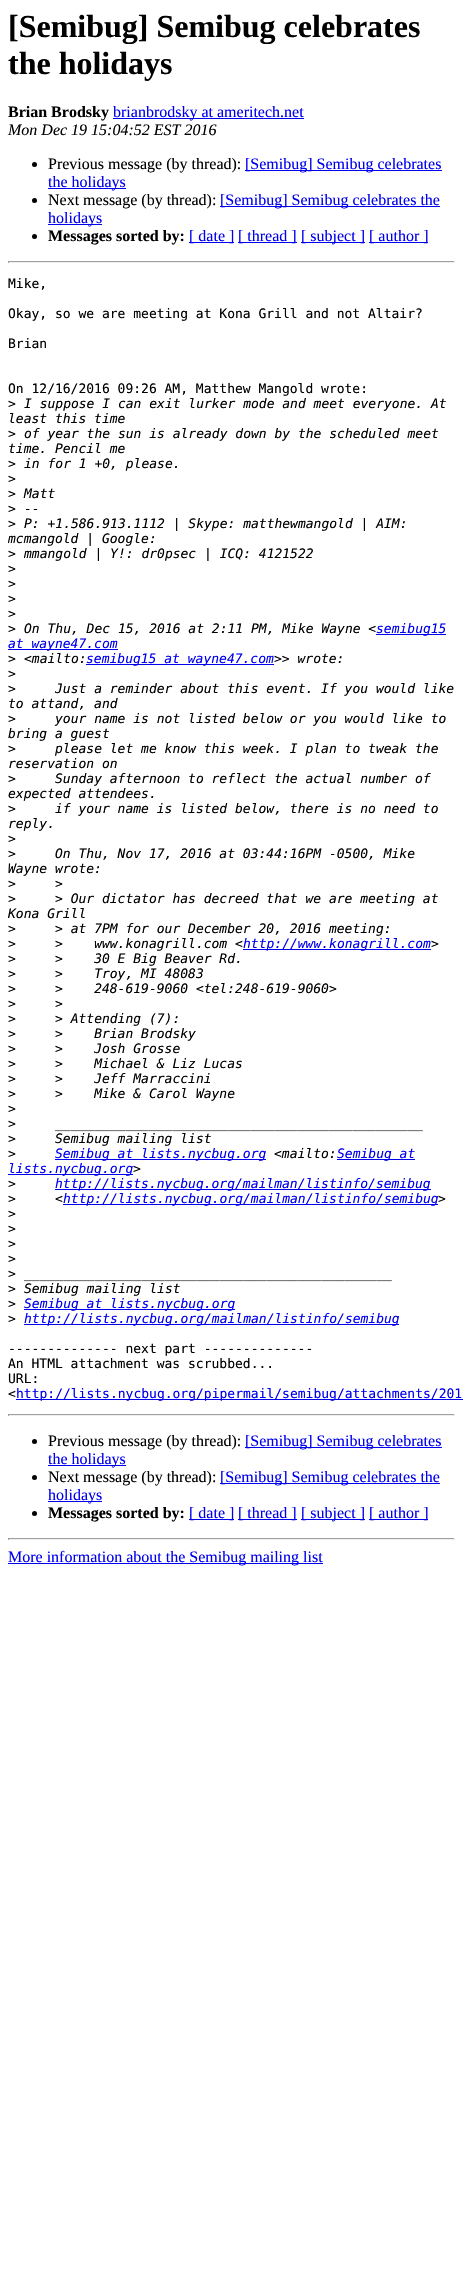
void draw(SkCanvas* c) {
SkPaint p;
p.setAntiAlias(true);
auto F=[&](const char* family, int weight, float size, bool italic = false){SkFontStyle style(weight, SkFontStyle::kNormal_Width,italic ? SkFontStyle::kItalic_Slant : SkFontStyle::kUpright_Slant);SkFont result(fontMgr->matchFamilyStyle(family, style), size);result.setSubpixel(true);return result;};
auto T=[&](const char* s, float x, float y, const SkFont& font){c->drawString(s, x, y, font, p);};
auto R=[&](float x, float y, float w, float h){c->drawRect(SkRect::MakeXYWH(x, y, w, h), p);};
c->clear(0xffffffff);
auto f1 = F("Liberation Serif",700,32);
p.setColor(0xff000000);
T("[Semibug] Semibug celebrates",8,37,f1);
T("the holidays",8,74,f1);
auto f2 = F("Liberation Serif",700,16);
T("Brian Brodsky",8,117,f2);
p.setColor(0xff0000ee);
R(113,118,191,1);
auto f3 = F("Liberation Serif",400,16);
T("brianbrodsky at ameritech.net",113,117,f3);
auto f4 = F("Liberation Serif",400,16,true);
p.setColor(0xff000000);
T("Mon Dec 19 15:04:52 EST 2016",8,135,f4);
c->drawCircle(34.5,164.5,2.5,p);
T("Previous message (by thread):",48,169,f3);
p.setColor(0xff0000ee);
R(245,170,197,1);
T("[Semibug] Semibug celebrates",245,169,f3);
R(48,188,78,1);
T("the holidays",48,187,f3);
p.setColor(0xff000000);
c->drawCircle(34.5,200.5,2.5,p);
T("Next message (by thread):",48,205,f3);
p.setColor(0xff0000ee);
R(220,206,220,1);
T("[Semibug] Semibug celebrates the",220,205,f3);
R(48,224,54,1);
T("holidays",48,223,f3);
p.setColor(0xff000000);
c->drawCircle(34.5,236.5,2.5,p);
T("Messages sorted by:",48,241,f2);
p.setColor(0xff0000ee);
R(189,242,45,1);
T("[ date ]",189,241,f3);
R(238,242,59,1);
T("[ thread ]",238,241,f3);
R(301,242,64,1);
T("[ subject ]",301,241,f3);
R(369,242,59,1);
T("[ author ]",369,241,f3);
p.setColor(0xff9f9f9f);
R(8,261,447,1);
p.setColor(0xffeeeeee);
R(454,261,1,2);
R(8,262,447,1);
p.setColor(0xff9f9f9f);
R(8,261,1,2);
auto f5 = F("DejaVu Sans Mono",400,13);
p.setColor(0xff000000);
T("Mike,",8,288,f5);
T("Okay, so we are meeting at Kona Grill and not Altair?",8,318,f5);
T("Brian",8,348,f5);
T("On 12/16/2016 09:26 AM, Matthew Mangold wrote:",8,393,f5);
T(">",8,408,f5);
auto f6 = F("DejaVu Sans Mono",400,13,true);
T("I suppose I can exit lurker mode and meet everyone. At",24,408,f6);
T("least this time",8,423,f6);
T(">",8,438,f5);
T("of year the sun is already down by the scheduled meet",24,438,f6);
T("time. Pencil me",8,453,f6);
T(">",8,468,f5);
T("in for 1 +0, please.",24,468,f6);
T(">",8,483,f5);
T(">",8,498,f5);
T("Matt",24,498,f6);
T(">",8,513,f5);
T("--",24,513,f6);
T(">",8,528,f5);
T("P: +1.586.913.1112 | Skype: matthewmangold | AIM:",24,528,f6);
T("mcmangold | Google:",8,543,f6);
T(">",8,558,f5);
T("mmangold | Y!: dr0psec | ICQ: 4121522",24,558,f6);
T(">",8,573,f5);
T(">",8,588,f5);
T(">",8,603,f5);
T(">",8,618,f5);
T(">",8,633,f5);
T("On Thu, Dec 15, 2016 at 2:11 PM, Mike Wayne <",24,633,f6);
p.setColor(0xff0000ee);
R(376,634,70,1);
T("semibug15",376,633,f6);
R(8,649,110,1);
T("at wayne47.com",8,648,f6);
p.setColor(0xff000000);
T(">",8,663,f5);
T("<mailto:",24,663,f6);
p.setColor(0xff0000ee);
R(86,664,188,1);
T("semibug15 at wayne47.com",86,663,f6);
p.setColor(0xff000000);
T(">> wrote:",274,663,f6);
T(">",8,678,f5);
T(">",8,693,f5);
T("Just a reminder about this event. If you would like",55,693,f6);
T("to attand, and",8,708,f6);
T(">",8,723,f5);
T("your name is not listed below or you would like to",55,723,f6);
T("bring a guest",8,738,f6);
T(">",8,753,f5);
T("please let me know this week. I plan to tweak the",55,753,f6);
T("reservation on",8,768,f6);
T(">",8,783,f5);
T("Sunday afternoon to reflect the actual number of",55,783,f6);
T("expected attendees.",8,798,f6);
T(">",8,813,f5);
T("if your name is listed below, there is no need to",55,813,f6);
T("reply.",8,828,f6);
T(">",8,843,f5);
T(">",8,858,f5);
T("On Thu, Nov 17, 2016 at 03:44:16PM -0500, Mike",55,858,f6);
T("Wayne wrote:",8,873,f6);
T(">",8,888,f5);
T(">",55,888,f6);
T(">",8,903,f5);
T("> Our dictator has decreed that we are meeting at",55,903,f6);
T("Kona Grill",8,918,f6);
T(">",8,933,f5);
T("> at 7PM for our December 20, 2016 meeting:",55,933,f6);
T(">",8,948,f5);
T(">    www.konagrill.com <",55,948,f6);
p.setColor(0xff0000ee);
R(243,949,188,1);
T("http://www.konagrill.com",243,948,f6);
p.setColor(0xff000000);
T(">",431,948,f6);
T(">",8,963,f5);
T(">    30 E Big Beaver Rd.",55,963,f6);
T(">",8,978,f5);
T(">    Troy, MI 48083",55,978,f6);
T(">",8,993,f5);
T(">    248-619-9060 <tel:248-619-9060>",55,993,f6);
T(">",8,1008,f5);
T(">",55,1008,f6);
T(">",8,1023,f5);
T("> Attending (7):",55,1023,f6);
T(">",8,1038,f5);
T(">    Brian Brodsky",55,1038,f6);
T(">",8,1053,f5);
T(">    Josh Grosse",55,1053,f6);
T(">",8,1068,f5);
T(">    Michael & Liz Lucas",55,1068,f6);
T(">",8,1083,f5);
T(">    Jeff Marraccini",55,1083,f6);
T(">",8,1098,f5);
T(">    Mike & Carol Wayne",55,1098,f6);
T(">",8,1113,f5);
T(">",8,1128,f5);
T("_______________________________________________",55,1128,f6);
T(">",8,1143,f5);
T("Semibug mailing list",55,1143,f6);
T(">",8,1158,f5);
p.setColor(0xff0000ee);
R(55,1159,211,1);
T("Semibug at lists.nycbug.org",55,1158,f6);
p.setColor(0xff000000);
T("<mailto:",274,1158,f6);
p.setColor(0xff0000ee);
R(337,1159,78,1);
T("Semibug at",337,1158,f6);
R(8,1174,125,1);
T("lists.nycbug.org",8,1173,f6);
p.setColor(0xff000000);
T(">",133,1173,f6);
T(">",8,1188,f5);
p.setColor(0xff0000ee);
R(55,1189,376,1);
T("http://lists.nycbug.org/mailman/listinfo/semibug",55,1188,f6);
p.setColor(0xff000000);
T(">",8,1203,f5);
T("<",55,1203,f6);
p.setColor(0xff0000ee);
R(63,1204,375,1);
T("http://lists.nycbug.org/mailman/listinfo/semibug",63,1203,f6);
p.setColor(0xff000000);
T(">",438,1203,f6);
T(">",8,1218,f5);
T(">",8,1233,f5);
T(">",8,1248,f5);
T(">",8,1263,f5);
T(">",8,1278,f5);
T("_______________________________________________",24,1278,f6);
T(">",8,1293,f5);
T("Semibug mailing list",24,1293,f6);
T(">",8,1308,f5);
p.setColor(0xff0000ee);
R(24,1309,211,1);
T("Semibug at lists.nycbug.org",24,1308,f6);
p.setColor(0xff000000);
T(">",8,1323,f5);
p.setColor(0xff0000ee);
R(24,1324,375,1);
T("http://lists.nycbug.org/mailman/listinfo/semibug",24,1323,f6);
p.setColor(0xff000000);
T("-------------- next part --------------",8,1353,f5);
T("An HTML attachment was scrubbed...",8,1368,f5);
T("URL:",8,1383,f5);
T("<",8,1398,f5);
p.setColor(0xff0000ee);
R(16,1399,447,1);
T("http://lists.nycbug.org/pipermail/semibug/attachments/201",16,1398,f5);
p.setColor(0xff9f9f9f);
R(8,1414,447,1);
p.setColor(0xffeeeeee);
R(454,1414,1,2);
R(8,1415,447,1);
p.setColor(0xff9f9f9f);
R(8,1414,1,2);
p.setColor(0xff000000);
c->drawCircle(34.5,1441.5,2.5,p);
T("Previous message (by thread):",48,1446,f3);
p.setColor(0xff0000ee);
R(245,1447,197,1);
T("[Semibug] Semibug celebrates",245,1446,f3);
R(48,1465,78,1);
T("the holidays",48,1464,f3);
p.setColor(0xff000000);
c->drawCircle(34.5,1477.5,2.5,p);
T("Next message (by thread):",48,1482,f3);
p.setColor(0xff0000ee);
R(220,1483,220,1);
T("[Semibug] Semibug celebrates the",220,1482,f3);
R(48,1501,54,1);
T("holidays",48,1500,f3);
p.setColor(0xff000000);
c->drawCircle(34.5,1513.5,2.5,p);
T("Messages sorted by:",48,1518,f2);
p.setColor(0xff0000ee);
R(189,1519,45,1);
T("[ date ]",189,1518,f3);
R(238,1519,59,1);
T("[ thread ]",238,1518,f3);
R(301,1519,64,1);
T("[ subject ]",301,1518,f3);
R(369,1519,59,1);
T("[ author ]",369,1518,f3);
p.setColor(0xff9f9f9f);
R(8,1538,447,1);
p.setColor(0xffeeeeee);
R(454,1538,1,2);
R(8,1539,447,1);
p.setColor(0xff9f9f9f);
R(8,1538,1,2);
p.setColor(0xff0000ee);
R(8,1563,315,1);
T("More information about the Semibug mailing list",8,1562,f3);
}
